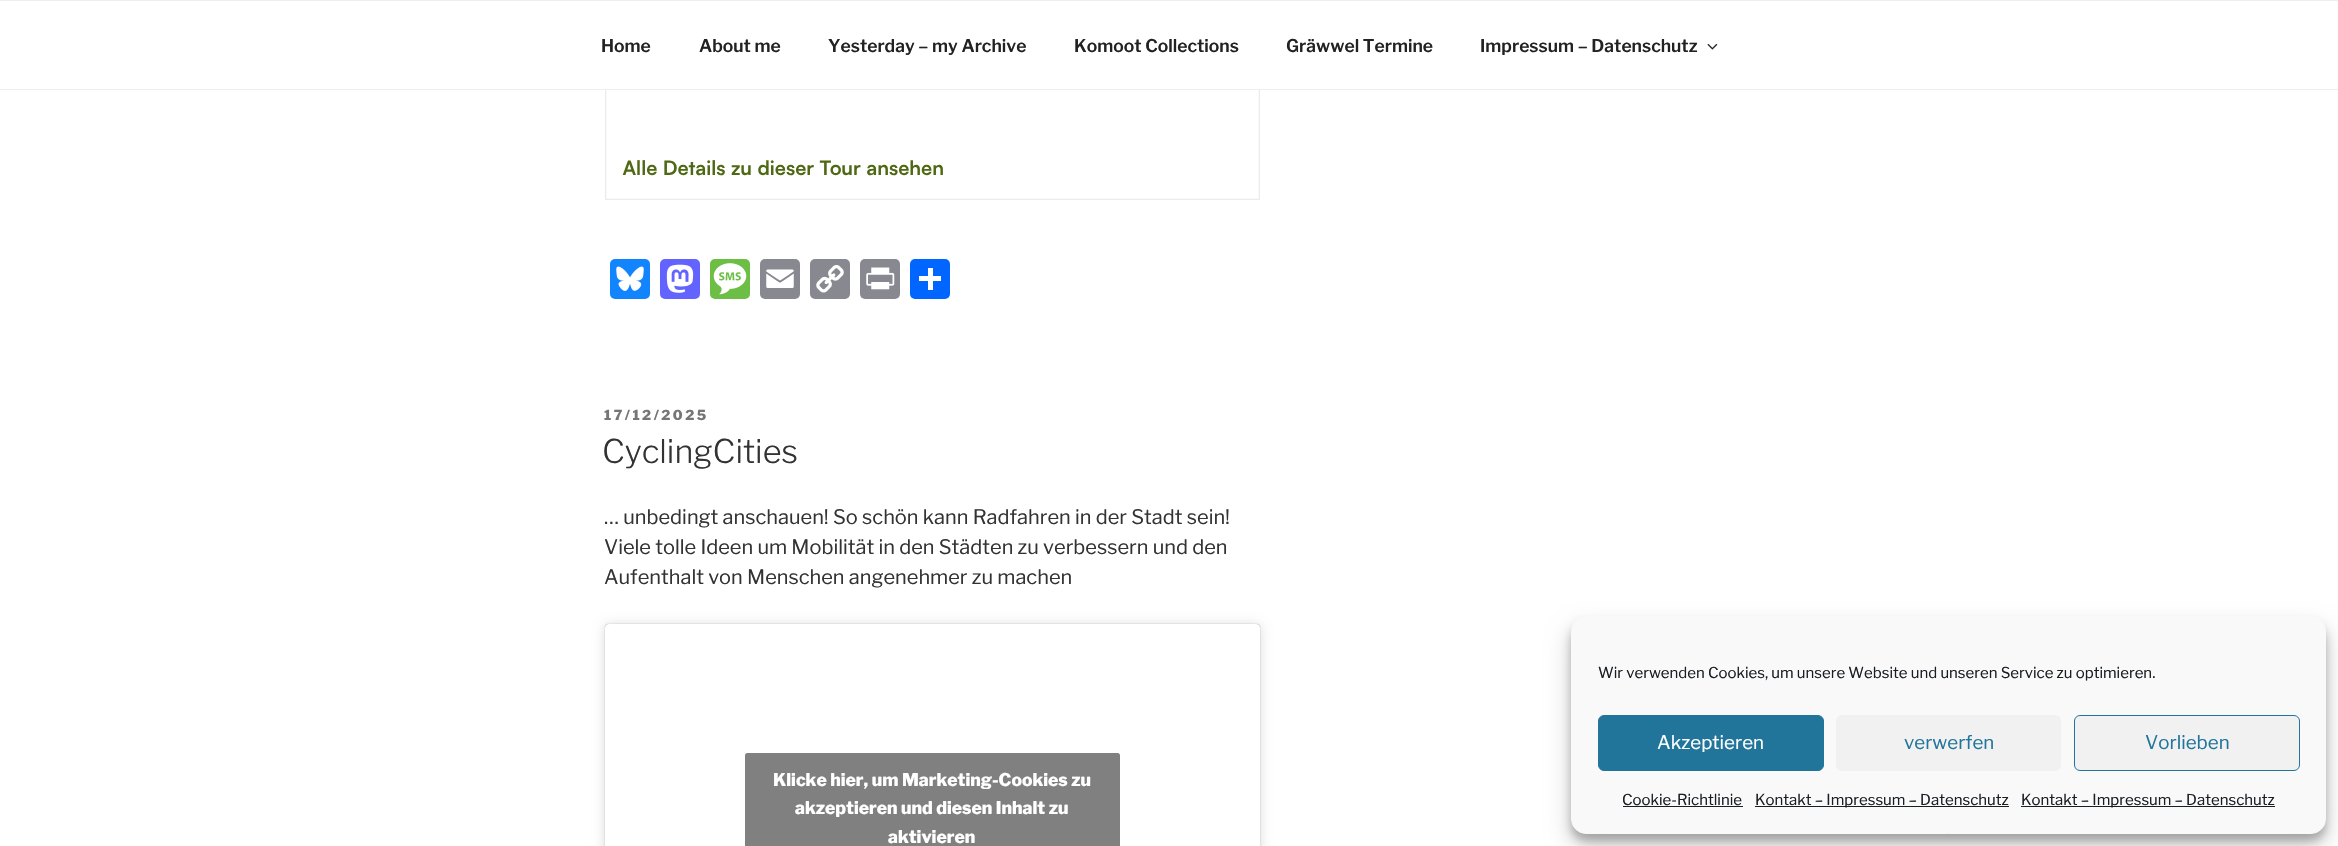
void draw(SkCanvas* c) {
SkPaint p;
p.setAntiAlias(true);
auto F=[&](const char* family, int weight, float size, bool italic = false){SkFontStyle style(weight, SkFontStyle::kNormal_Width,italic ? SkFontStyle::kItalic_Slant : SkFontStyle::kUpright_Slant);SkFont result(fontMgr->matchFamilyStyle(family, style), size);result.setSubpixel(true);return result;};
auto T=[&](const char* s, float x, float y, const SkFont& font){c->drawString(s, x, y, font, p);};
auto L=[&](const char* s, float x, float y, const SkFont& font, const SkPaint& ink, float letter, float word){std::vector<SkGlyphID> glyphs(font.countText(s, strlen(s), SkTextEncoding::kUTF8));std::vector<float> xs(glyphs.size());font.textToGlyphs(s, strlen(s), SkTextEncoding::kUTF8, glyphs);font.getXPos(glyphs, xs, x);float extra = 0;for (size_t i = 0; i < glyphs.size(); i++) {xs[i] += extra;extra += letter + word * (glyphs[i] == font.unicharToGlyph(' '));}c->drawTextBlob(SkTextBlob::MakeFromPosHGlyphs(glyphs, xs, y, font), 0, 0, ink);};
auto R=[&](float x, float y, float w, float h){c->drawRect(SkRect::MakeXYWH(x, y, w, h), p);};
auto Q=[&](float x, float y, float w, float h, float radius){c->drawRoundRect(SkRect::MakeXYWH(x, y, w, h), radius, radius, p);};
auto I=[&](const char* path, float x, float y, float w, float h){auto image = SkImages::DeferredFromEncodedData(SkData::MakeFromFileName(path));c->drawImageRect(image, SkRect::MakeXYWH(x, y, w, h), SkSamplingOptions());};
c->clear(0xffffffff);
p.setColor(0xffeeeeee);
R(0,0,2338,1);
R(0,89,2338,1);
auto f1 = F("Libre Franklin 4",100,17.5);
p.setColor(0xff222222);
T("Home",601,52,f1);
T("About me",699,52,f1);
T("Yesterday – my Archive",828,52,f1);
T("Komoot Collections",1074,52,f1);
T("Gräwwel Termine",1286,52,f1);
T("Impressum – Datenschutz",1480,52,f1);
I("1.png",1707,43,11,7);
I("2.png",605,90,655,110);
p.setColor(0xff1285fe);
Q(610,259,40,40,5);
I("3.png",616,266,28,25);
p.setColor(0xff6364ff);
Q(660,259,40,40,5);
I("4.png",666,264,28,29);
p.setColor(0xff6cbe45);
Q(710,259,40,40,5);
I("5.png",713,263,34,32);
p.setColor(0xff888990);
Q(760,259,40,40,5);
I("6.png",766,269,28,19);
Q(810,259,40,40,5);
I("7.png",816,265,28,28);
Q(860,259,40,40,5);
I("8.png",866,267,29,23);
p.setColor(0xff0166ff);
Q(910,259,40,40,5);
p.setColor(0xffffffff);
R(928,268,5,22);
R(919,276,22,5);
auto f2 = F("Libre Franklin",100,13.75);
p.setColor(0xff767676);
L("17/12/2025",604,420,f2,p,2.5,0);
auto f3 = F("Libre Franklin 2",100,32.5);
p.setColor(0xff333333);
T("CyclingCities",602,463,f3);
auto f4 = F("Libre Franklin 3",100,20);
T("… unbedingt anschauen! So schön kann Radfahren in der Stadt sein!",604,524,f4);
T("Viele tolle Ideen um Mobilität in den Städten zu verbessern und den",604,554,f4);
T("Aufenthalt von Menschen angenehmer zu machen",604,584,f4);
p.setColor(0x26000000);
p.setMaskFilter(SkMaskFilter::MakeBlur(kNormal_SkBlurStyle, 6));
c->drawRoundRect(SkRect::MakeXYWH(605,625,655,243),4,4,p);
p.setMaskFilter(nullptr);
p.setColor(0x80000000);
p.setMaskFilter(SkMaskFilter::MakeBlur(kNormal_SkBlurStyle, .5));
c->drawRoundRect(SkRect::MakeXYWH(605,624,655,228),4,4,p);
p.setMaskFilter(nullptr);
p.setColor(0xffffffff);
Q(605,624,655,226,4);
p.setColor(0xff808080);
Q(745,753,375,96,2.5);
auto f5 = F("Libre Franklin",100,17.5);
p.setColor(0xffffffff);
T("Klicke hier, um Marketing-Cookies zu",773,786,f5);
T("akzeptieren und diesen Inhalt zu",795,814,f5);
T("aktivieren",888,843,f5);
p.setColor(0x3b000000);
p.setMaskFilter(SkMaskFilter::MakeBlur(kNormal_SkBlurStyle, 4));
c->drawRoundRect(SkRect::MakeXYWH(1571,624,755,217),15,15,p);
p.setMaskFilter(nullptr);
p.setColor(0x30000000);
p.setMaskFilter(SkMaskFilter::MakeBlur(kNormal_SkBlurStyle, 12.5));
c->drawRoundRect(SkRect::MakeXYWH(1571,629,755,217),15,15,p);
p.setMaskFilter(nullptr);
p.setColor(0xfff9f9f9);
c->drawRoundRect(SkRect::MakeXYWH(1571.5,616.5,754,217),14.5,14.5,p);
p.setStroke(true);
p.setStrokeWidth(1);
c->drawRoundRect(SkRect::MakeXYWH(1571.5,616.5,754,217),14.5,14.5,p);
auto f6 = F("Libre Franklin 3",100,15);
p.setStroke(false);
p.setColor(0xff191e23);
T("Wir verwenden Cookies, um unsere Website und unseren Service zu optimieren.",1598,678,f6);
p.setColor(0xff21759b);
c->drawRoundRect(SkRect::MakeXYWH(1598.5,715.5,225,55),5.5,5.5,p);
p.setStroke(true);
c->drawRoundRect(SkRect::MakeXYWH(1598.5,715.5,225,55),5.5,5.5,p);
auto f7 = F("Libre Franklin 3",100,18.75);
p.setStroke(false);
p.setColor(0xffffffff);
T("Akzeptieren",1657,749,f7);
p.setColor(0xfff1f1f1);
Q(1836,715,225,56,6);
p.setColor(0xff21759b);
T("verwerfen",1904,749,f7);
p.setColor(0xfff1f1f1);
c->drawRoundRect(SkRect::MakeXYWH(2074.5,715.5,225,55),5.5,5.5,p);
p.setStroke(true);
p.setColor(0xff21759b);
c->drawRoundRect(SkRect::MakeXYWH(2074.5,715.5,225,55),5.5,5.5,p);
p.setStroke(false);
T("Vorlieben",2145,749,f7);
p.setColor(0xff191e23);
T("Cookie-Richtlinie",1622,805,f6);
R(1623,806,120,1);
R(1755,806,254,1);
T("Kontakt – Impressum – Datenschutz",1755,805,f6);
R(2021,806,254,1);
T("Kontakt – Impressum – Datenschutz",2021,805,f6);
}
